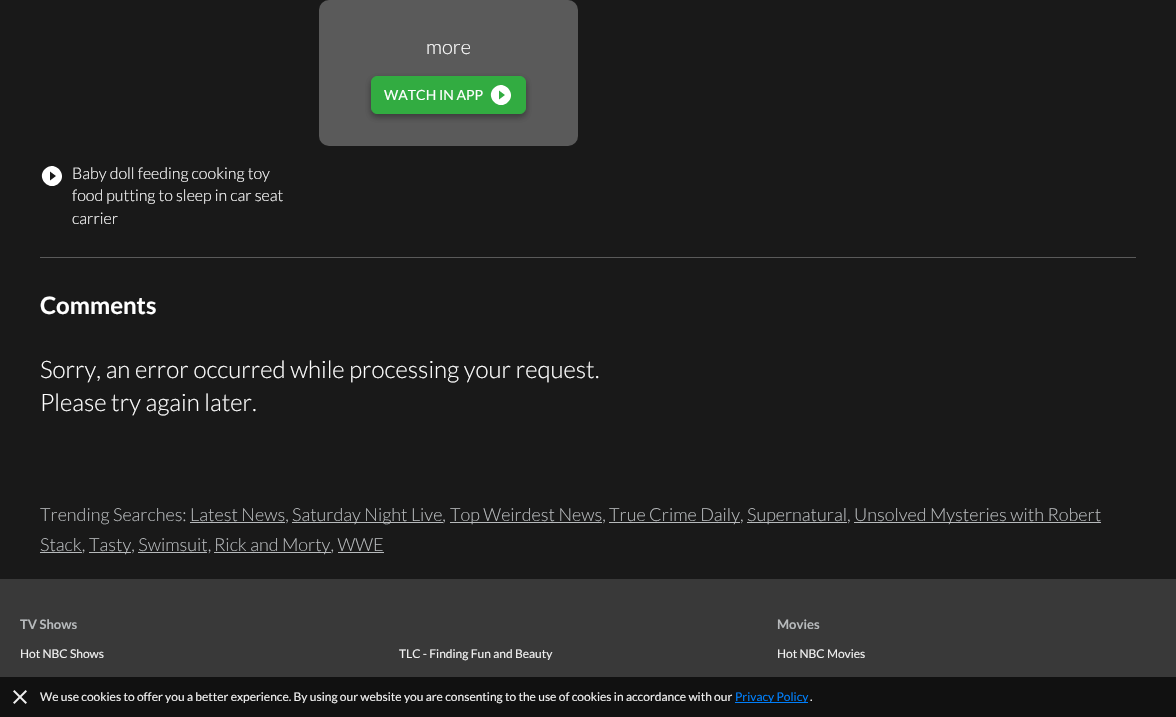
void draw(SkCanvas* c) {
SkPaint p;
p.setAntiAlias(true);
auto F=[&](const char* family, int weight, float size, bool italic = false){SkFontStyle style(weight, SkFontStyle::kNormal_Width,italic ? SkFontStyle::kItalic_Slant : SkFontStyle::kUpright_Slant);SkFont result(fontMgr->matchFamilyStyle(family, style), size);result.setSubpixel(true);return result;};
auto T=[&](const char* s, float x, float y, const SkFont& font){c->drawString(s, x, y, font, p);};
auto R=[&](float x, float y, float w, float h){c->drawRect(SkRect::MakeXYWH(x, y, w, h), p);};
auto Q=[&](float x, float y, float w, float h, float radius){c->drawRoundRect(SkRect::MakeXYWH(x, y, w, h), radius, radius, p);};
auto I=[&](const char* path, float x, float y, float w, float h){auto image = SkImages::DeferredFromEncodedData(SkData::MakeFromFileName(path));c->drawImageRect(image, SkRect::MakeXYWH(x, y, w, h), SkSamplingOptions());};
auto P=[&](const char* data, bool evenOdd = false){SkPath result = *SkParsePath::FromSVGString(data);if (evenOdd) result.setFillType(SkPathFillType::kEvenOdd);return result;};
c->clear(0xff393939);
p.setColor(0xff191919);
R(0,0,1176,579);
p.setColor(0xff5a5a5a);
Q(319,0,259,146,10);
auto f1 = F("Lato",300,20);
p.setColor(0xffffffff);
T("more",426,54,f1);
p.setColor(0x3b000000);
p.setMaskFilter(SkMaskFilter::MakeBlur(kNormal_SkBlurStyle, 3));
c->drawRoundRect(SkRect::MakeXYWH(371,79,155,38),6,6,p);
p.setMaskFilter(nullptr);
p.setColor(0x29000000);
p.setMaskFilter(SkMaskFilter::MakeBlur(kNormal_SkBlurStyle, 3));
c->drawRoundRect(SkRect::MakeXYWH(371,79,155,38),6,6,p);
p.setMaskFilter(nullptr);
p.setColor(0xff32ac41);
c->drawRoundRect(SkRect::MakeXYWH(371.5,76.5,154,37),5.5,5.5,p);
p.setStroke(true);
p.setStrokeWidth(1);
c->drawRoundRect(SkRect::MakeXYWH(371.5,76.5,154,37),5.5,5.5,p);
auto f2 = F("Lato",400,14);
p.setStroke(false);
p.setColor(0xffffffff);
T("WATCH IN APP",384,100,f2);
c->drawPath(P("M499 99.5l6-4.5l-6-4.5zm-5-11.5c9-9.5 23.5 5 14 14c-9 9.5-23.5-5-14-14z"),p);
c->drawPath(P("M50 180.5l6-4.5l-6-4.5zm-5-11.5c9-9.5 23.5 5 14 14c-9 9.5-23.5-5-14-14z"),p);
auto f3 = F("Lato",300,16);
T("Baby doll feeding cooking toy",72,179,f3);
T("food putting to sleep in car seat",72,201,f3);
T("carrier",72,224,f3);
p.setColor(0xff5a5a5a);
R(40,257,1096,1);
auto f4 = F("Lato",700,24);
p.setColor(0xffffffff);
T("Comments",40,314,f4);
auto f5 = F("Lato",300,24);
T("Sorry, an error occurred while processing your request.",40,378,f5);
T("Please try again later.",40,411,f5);
auto f6 = F("Lato",300,18);
p.setColor(0xffb7babc);
T("Trending Searches: Latest News,",40,521,f6);
R(292,522,151,1);
T("Saturday Night Live,",292,521,f6);
R(450,522,152,1);
T("Top Weirdest News,",450,521,f6);
R(609,522,131,1);
T("True Crime Daily,",609,521,f6);
R(747,522,100,1);
T("Supernatural,",747,521,f6);
R(854,522,247,1);
T("Unsolved Mysteries with Robert",854,521,f6);
R(190,522,95,1);
R(40,552,42,1);
T("Stack,",40,551,f6);
R(89,552,42,1);
T("Tasty, Swimsuit,",89,551,f6);
R(214,552,117,1);
T("Rick and Morty, WWE",214,551,f6);
R(138,552,69,1);
R(338,552,46,1);
auto f7 = F("Lato",700,13);
T("TV Shows",20,629,f7);
auto f8 = F("Lato",400,12);
p.setColor(0xfff0f0f0);
T("Hot NBC Shows",20,658,f8);
T("TLC - Finding Fun and Beauty",399,658,f8);
p.setColor(0xffb7babc);
T("Movies",777,629,f7);
p.setColor(0xfff0f0f0);
T("Hot NBC Movies",777,658,f8);
p.setColor(0xb3000000);
R(0,677,1176,40);
I("1.png",13,690,14,14);
p.setColor(0xfff0f0f0);
T("We use cookies to offer you a better experience. By using our website you are consenting to the use of cookies in accordance with our",40,701,f8);
p.setColor(0xff007ffb);
R(735,702,73,1);
T("Privacy Policy",735,701,f8);
p.setColor(0xfff0f0f0);
T(".",810,701,f8);
}
